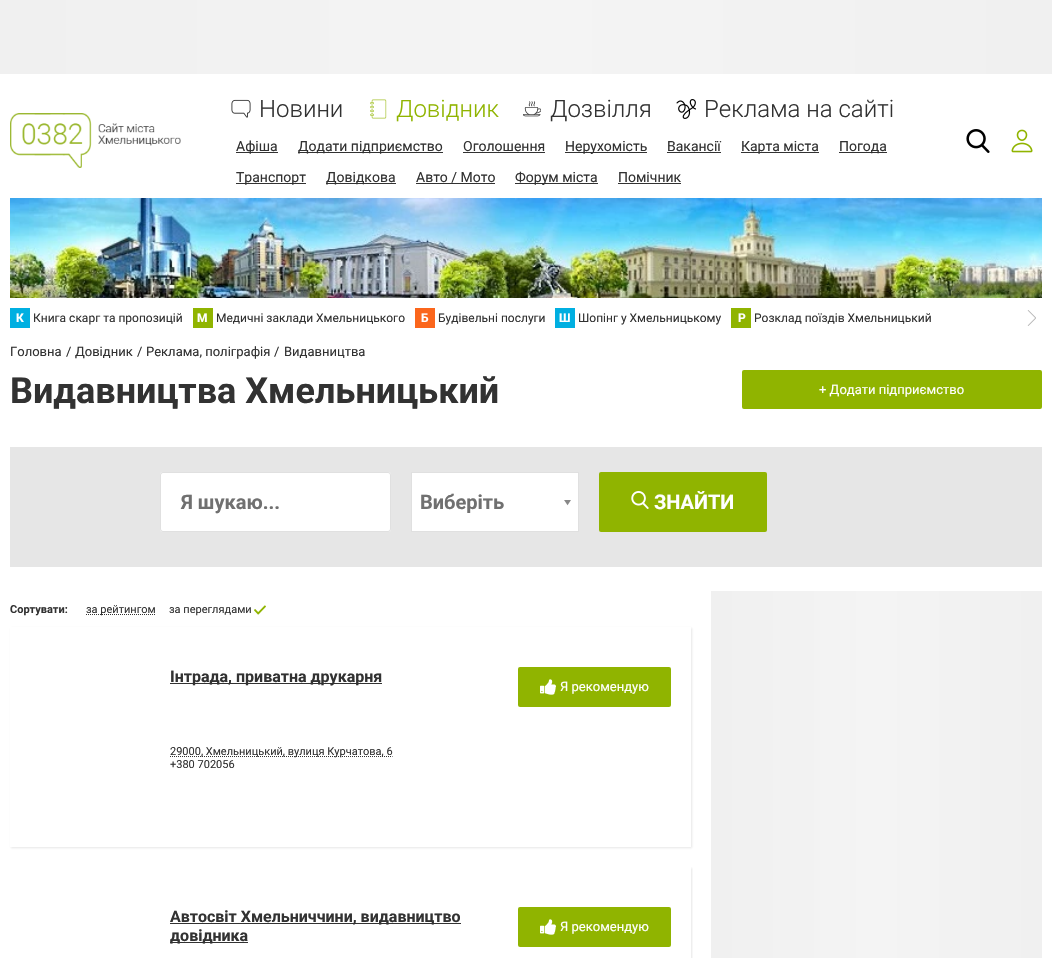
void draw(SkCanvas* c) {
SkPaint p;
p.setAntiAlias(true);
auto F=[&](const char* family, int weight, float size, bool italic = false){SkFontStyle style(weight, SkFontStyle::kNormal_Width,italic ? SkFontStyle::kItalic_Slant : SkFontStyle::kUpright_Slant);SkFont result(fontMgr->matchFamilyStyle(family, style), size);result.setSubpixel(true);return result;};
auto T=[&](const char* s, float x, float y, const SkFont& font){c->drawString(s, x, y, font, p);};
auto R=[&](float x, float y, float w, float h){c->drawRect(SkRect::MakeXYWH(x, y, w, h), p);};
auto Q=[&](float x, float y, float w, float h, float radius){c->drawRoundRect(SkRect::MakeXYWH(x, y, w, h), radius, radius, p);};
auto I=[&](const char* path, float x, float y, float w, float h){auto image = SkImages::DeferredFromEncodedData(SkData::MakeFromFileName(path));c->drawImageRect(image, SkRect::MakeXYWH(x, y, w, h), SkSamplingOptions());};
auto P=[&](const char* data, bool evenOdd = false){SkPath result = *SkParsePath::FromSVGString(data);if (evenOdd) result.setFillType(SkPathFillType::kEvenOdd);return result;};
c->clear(0xffffffff);
{
const SkColor colors[] = {0xfff0f0f0,0xfff4f4f4,0xfff0f0f0};
const float stops[] = {0,.5,1};
const SkPoint ends[] = {{0,37}, {1052,37}};
p.setShader(SkGradientShader::MakeLinear(ends, colors, stops, 3, SkTileMode::kClamp));
p.setAlpha(255);
}
R(0,0,1052,74);
I("1.png",10,113,171,55);
I("2.png",231,99,20,19);
auto f1 = F("Roboto",300,24);
p.setShader(nullptr);
p.setColor(0xff323232);
T("Новини",259,117,f1);
I("3.png",370,99,17,20);
p.setColor(0xff90b400);
T("Довідник",396,117,f1);
I("4.png",523,101,18,16);
p.setColor(0xff323232);
T("Дозвілля",550,117,f1);
I("5.png",676,99,20,20);
T("Реклама на сайті",704,117,f1);
R(236,152,42,1);
auto f2 = F("Roboto",400,14);
T("Афіша",236,151,f2);
R(298,152,145,1);
T("Додати підприємство",298,151,f2);
T("Оголошення",463,151,f2);
R(463,152,82,1);
R(565,152,82,1);
T("Нерухомість",565,151,f2);
T("Вакансії",667,151,f2);
R(667,152,54,1);
R(741,152,78,1);
T("Карта міста",741,151,f2);
R(839,152,48,1);
T("Погода",839,151,f2);
R(236,183,70,1);
T("Транспорт",236,182,f2);
R(326,183,70,1);
T("Довідкова",326,182,f2);
T("Авто / Мото",416,182,f2);
R(416,183,79,1);
R(515,183,83,1);
T("Форум міста",515,182,f2);
T("Помічник",618,182,f2);
R(618,183,63,1);
I("6.png",966,129,24,24);
I("7.png",1011,129,22,24);
I("8.png",10,198,1032,100);
p.setColor(0xff00afe1);
R(10,308,20,20);
auto f3 = F("Roboto",700,12);
p.setColor(0xffffffff);
T("К",16,322,f3);
auto f4 = F("Roboto",400,12);
p.setColor(0xff323232);
T("Книга скарг та пропозицій",33,322,f4);
p.setColor(0xff90b400);
R(193,308,20,20);
p.setColor(0xffffffff);
T("М",197,322,f3);
p.setColor(0xff323232);
T("Медичні заклади Хмельницького",216,322,f4);
p.setColor(0xfffb661c);
R(415,308,20,20);
p.setColor(0xffffffff);
T("Б",421,322,f3);
p.setColor(0xff323232);
T("Будівельні послуги",438,322,f4);
p.setColor(0xff00afe1);
R(555,308,20,20);
p.setColor(0xffffffff);
T("Ш",559,322,f3);
p.setColor(0xff323232);
T("Шопінг у Хмельницькому",578,322,f4);
p.setColor(0xff90b400);
R(731,308,20,20);
p.setColor(0xffffffff);
T("Р",738,322,f3);
p.setColor(0xff323232);
T("Розклад поїздів Хмельницький",754,322,f4);
I("9.png",1027,310,9,16);
auto f5 = F("Roboto",400,13);
T("Головна",10,356,f5);
T("/",66,356,f5);
T("Довідник",75,356,f5);
T("/",137,356,f5);
T("Реклама, поліграфія",146,356,f5);
T("/",274,356,f5);
T("Видавництва",284,356,f5);
auto f6 = F("Roboto",700,36);
T("Видавництва Хмельницький",10,403,f6);
p.setColor(0xff90b400);
Q(742,370,300,39,2);
p.setColor(0xffffffff);
T("+ Додати підприємство",819,394,f5);
p.setColor(0xffe6e6e6);
R(10,447,1032,120);
p.setColor(0xffffffff);
Q(160,472,231,60,3);
p.setStroke(true);
p.setStrokeWidth(1);
p.setColor(0x26323232);
c->drawRoundRect(SkRect::MakeXYWH(160.5,472.5,230,59),2.5,2.5,p);
auto f7 = F("Roboto",700,20);
p.setStroke(false);
p.setColor(0xff707070);
T("Я шукаю...",181,509,f7);
p.setColor(0xffffffff);
c->drawRect(SkRect::MakeXYWH(411.5,472.5,167,59),p);
p.setStroke(true);
p.setColor(0xffe0e0e0);
c->drawRect(SkRect::MakeXYWH(411.5,472.5,167,59),p);
p.setStroke(false);
p.setColor(0xff707070);
T("Виберіть",420,509,f7);
I("10.png",564,500,7,6);
p.setColor(0xff90b400);
Q(599,472,168,60,2);
I("11.png",631,491,18,18);
p.setColor(0xffffffff);
T("ЗНАЙТИ",654,509,f7);
auto f8 = F("Roboto",700,11);
p.setColor(0xff323232);
T("Сортувати:",10,613,f8);
p.setStroke(true);
p.setPathEffect(SkDashPathEffect::Make({{1,1}}, 0));
c->drawPath(P("M86 614.5h69.5"),p);
p.setPathEffect(nullptr);
auto f9 = F("Roboto",400,11);
p.setStroke(false);
T("за рейтингом",86,613,f9);
T("за переглядами",169,613,f9);
I("12.png",254,605,12,10);
c->save();
c->clipPath(P("M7 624h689v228h-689zm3 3h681v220h-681z",true),true);
p.setColor(0x265a5a5a);
p.setMaskFilter(SkMaskFilter::MakeBlur(kNormal_SkBlurStyle, 1));
c->drawRect(SkRect::MakeXYWH(11,628,681,220),p);
p.setMaskFilter(nullptr);
c->restore();
p.setColor(0xff323232);
R(170,683,212,1);
auto f10 = F("Roboto",700,16);
T("Інтрада, приватна друкарня",170,682,f10);
p.setStroke(true);
p.setPathEffect(SkDashPathEffect::Make({{1,1}}, 0));
c->drawPath(P("M170 756.5h222.5"),p);
p.setPathEffect(nullptr);
p.setStroke(false);
T("29000, Хмельницький, вулиця Курчатова, 6",170,755,f9);
T("+380 702056",170,768,f9);
p.setColor(0xff90b400);
Q(518,667,153,40,2);
I("13.png",540,679,16,16);
p.setColor(0xffffffff);
T("Я рекомендую",560,691,f5);
c->save();
c->clipRect(SkRect::MakeXYWH(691,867,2,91));
p.setColor(0x265a5a5a);
p.setMaskFilter(SkMaskFilter::MakeBlur(kNormal_SkBlurStyle, 1));
c->drawRect(SkRect::MakeXYWH(11,868,681,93),p);
p.setMaskFilter(nullptr);
c->restore();
p.setColor(0xff323232);
R(170,923,291,1);
T("Автосвіт Хмельниччини, видавництво",170,922,f10);
R(170,942,78,1);
T("довідника",170,941,f10);
p.setColor(0xff90b400);
Q(518,907,153,40,2);
I("13.png",540,919,16,16);
p.setColor(0xffffffff);
T("Я рекомендую",560,931,f5);
{
const SkColor colors[] = {0xfff0f0f0,0xfff4f4f4,0xfff0f0f0};
const float stops[] = {0,.5,1};
const SkPoint ends[] = {{711,861}, {1042,861}};
p.setShader(SkGradientShader::MakeLinear(ends, colors, stops, 3, SkTileMode::kClamp));
p.setAlpha(255);
}
R(711,591,331,367);
}
